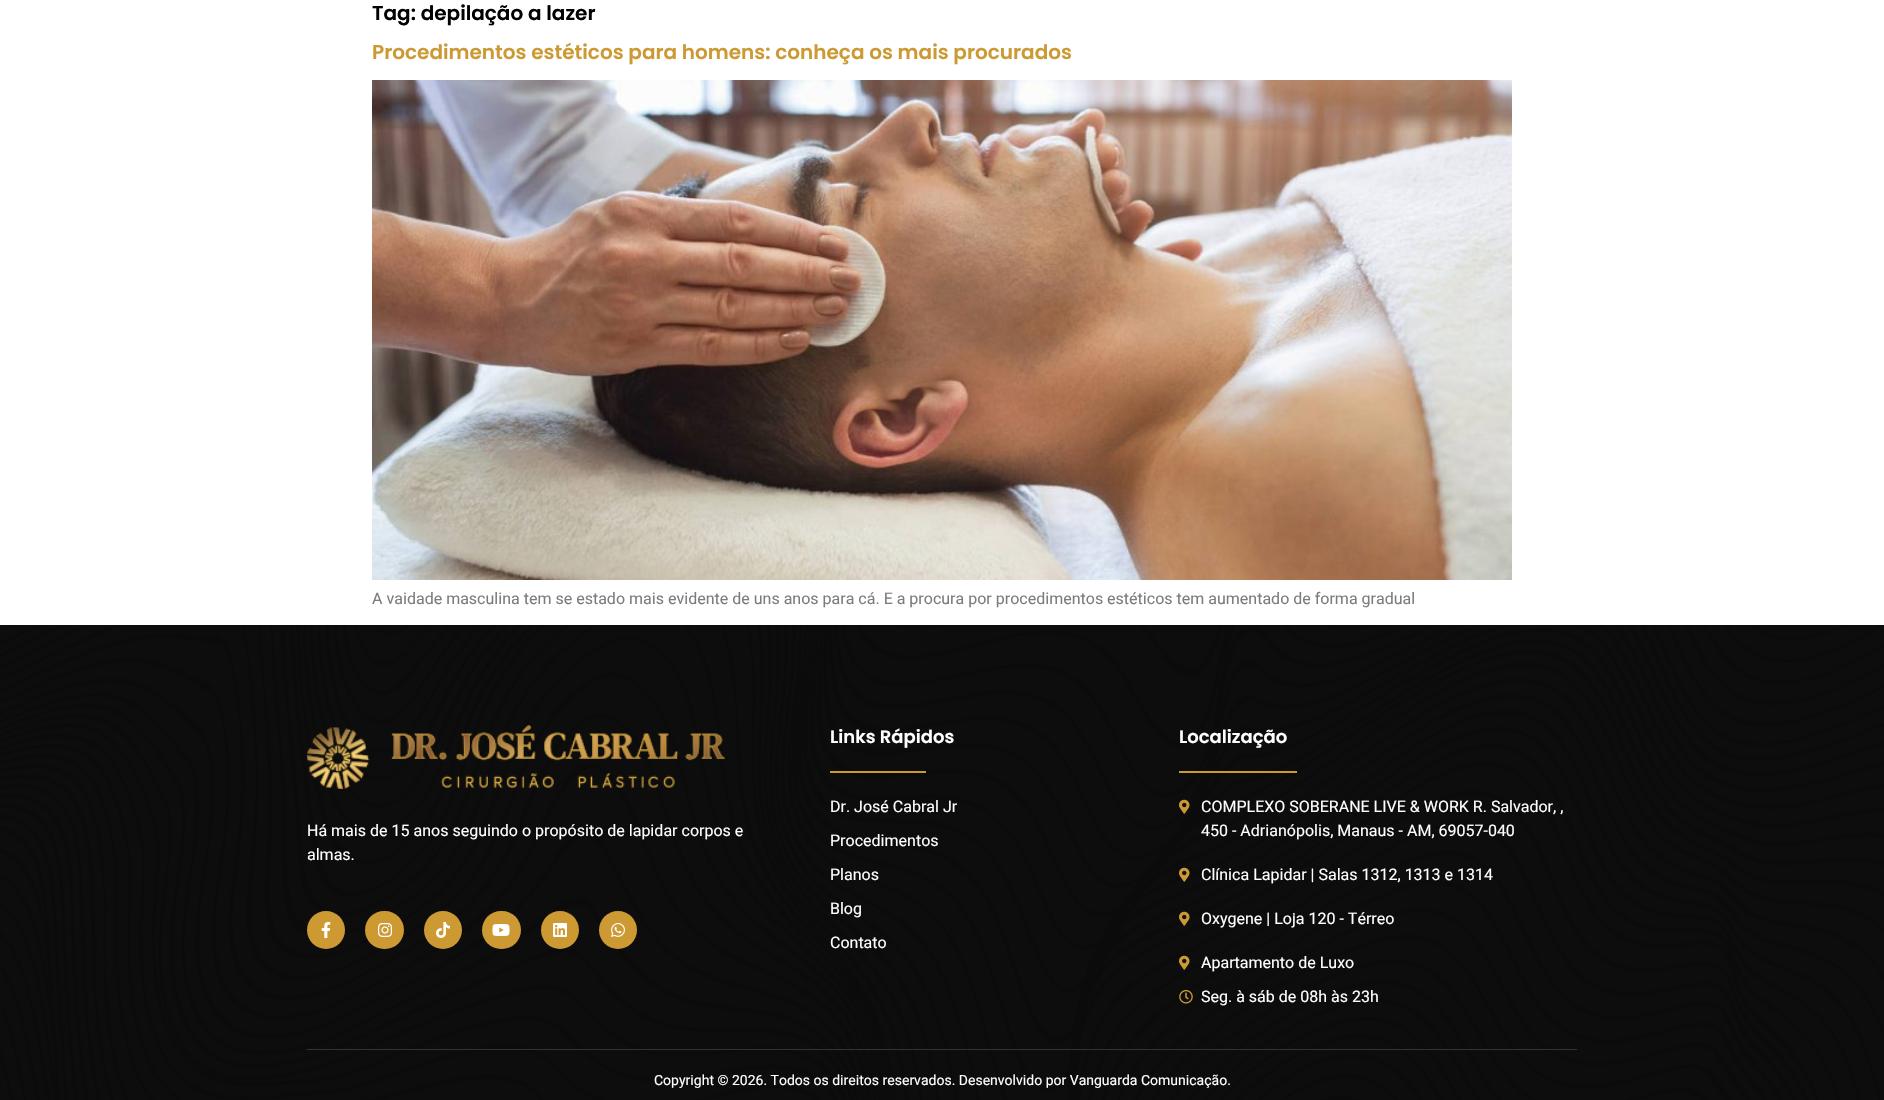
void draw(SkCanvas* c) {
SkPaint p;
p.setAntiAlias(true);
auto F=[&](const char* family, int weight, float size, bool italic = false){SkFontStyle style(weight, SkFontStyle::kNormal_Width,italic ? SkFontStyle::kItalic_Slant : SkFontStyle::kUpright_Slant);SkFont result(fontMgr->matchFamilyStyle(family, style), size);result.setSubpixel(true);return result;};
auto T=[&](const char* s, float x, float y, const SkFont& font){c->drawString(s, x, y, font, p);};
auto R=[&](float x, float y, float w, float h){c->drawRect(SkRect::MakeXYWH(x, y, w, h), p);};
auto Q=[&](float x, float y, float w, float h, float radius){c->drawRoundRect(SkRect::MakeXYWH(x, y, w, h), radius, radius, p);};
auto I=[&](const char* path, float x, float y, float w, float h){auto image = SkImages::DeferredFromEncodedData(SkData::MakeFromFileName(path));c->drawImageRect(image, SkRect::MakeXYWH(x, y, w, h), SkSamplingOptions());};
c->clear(0xffffffff);
auto f1 = F("Poppins",600,20);
p.setColor(0xff000000);
T("Tag: depilação a lazer",372,20,f1);
p.setColor(0xffcc9933);
T("Procedimentos estéticos para homens: conheça os mais procurados",372,59,f1);
I("1.png",372,80,1140,500);
auto f2 = F("Heebo",400,16);
p.setColor(0xff7c7c7c);
T("A vaidade masculina tem se estado mais evidente de uns anos para cá. E a procura por procedimentos estéticos tem aumentado de forma gradual",372,604,f2);
I("2.png",0,625,1884,475);
I("3.png",307,725,418,64);
p.setColor(0xffffffff);
T("Há mais de 15 anos seguindo o propósito de lapidar corpos e",307,836,f2);
T("almas.",307,860,f2);
p.setColor(0xffcc9933);
c->drawCircle(326,930,19,p);
I("4.png",321,922,10,16);
Q(365,911,39,38,19);
I("5.png",378,923,14,14);
c->drawCircle(443,930,19,p);
I("6.png",436,922,14,16);
Q(482,911,39,38,19);
I("7.png",492,924,18,12);
c->drawCircle(560,930,19,p);
I("8.png",553,923,14,14);
c->drawCircle(618,930,19,p);
I("9.png",611,923,14,14);
auto f3 = F("Poppins",600,18);
p.setColor(0xffffffff);
T("Links Rápidos",830,743,f3);
p.setColor(0xffcc9933);
R(830,771,96,2);
p.setColor(0xffffffff);
T("Dr. José Cabral Jr",830,812,f2);
T("Procedimentos",830,846,f2);
T("Planos",830,880,f2);
T("Blog",830,914,f2);
T("Contato",830,948,f2);
T("Localização",1179,743,f3);
p.setColor(0xffcc9933);
R(1179,771,118,2);
I("10.png",1179,799,11,15);
p.setColor(0xffffffff);
T("COMPLEXO SOBERANE LIVE & WORK R. Salvador, ,",1201,812,f2);
T("450 - Adrianópolis, Manaus - AM, 69057-040",1201,836,f2);
I("11.png",1179,867,11,15);
T("Clínica Lapidar | Salas 1312, 1313 e 1314",1201,880,f2);
I("12.png",1179,911,11,15);
T("Oxygene | Loja 120 - Térreo",1201,924,f2);
I("13.png",1179,955,11,15);
T("Apartamento de Luxo",1201,968,f2);
I("14.png",1179,990,14,14);
T("Seg. à sáb de 08h às 23h",1201,1002,f2);
p.setColor(0xff333333);
R(307,1049,1270,1);
auto f4 = F("Heebo",400,14);
p.setColor(0xffffffff);
T("Copyright © 2026. Todos os direitos reservados. Desenvolvido por Vanguarda Comunicação.",654,1085,f4);
}
